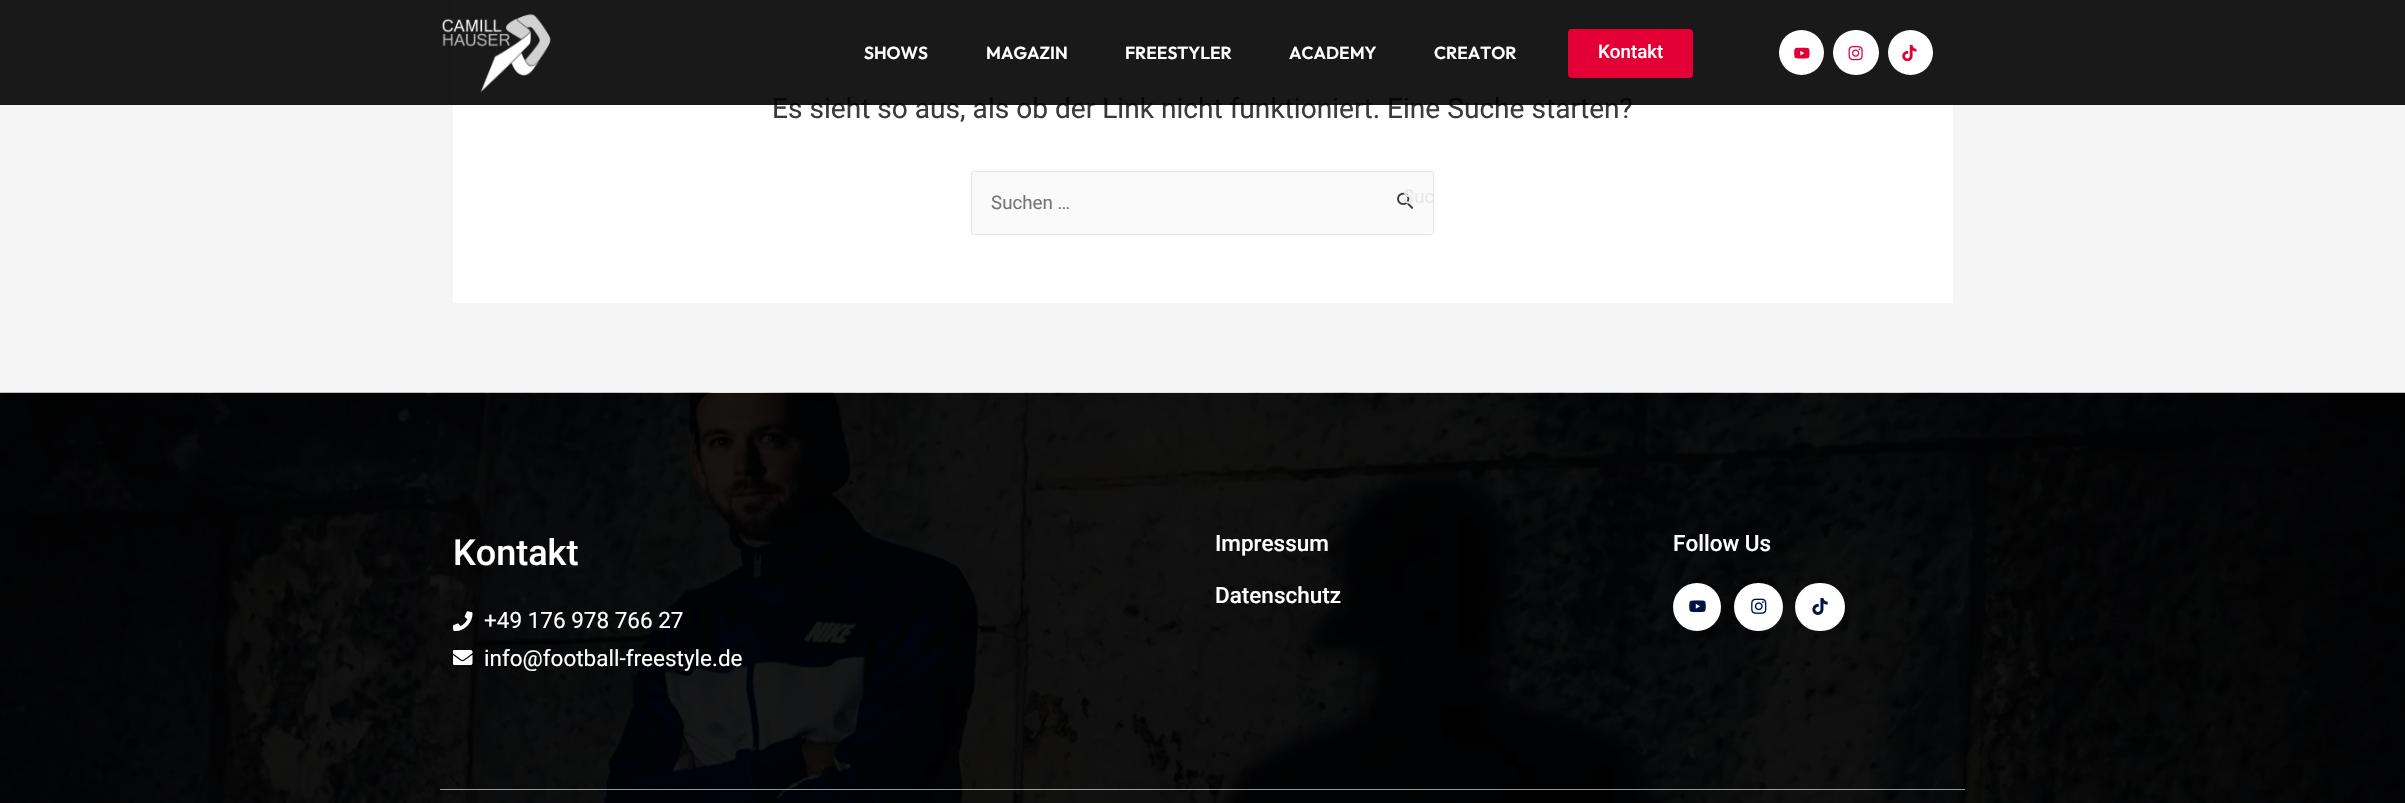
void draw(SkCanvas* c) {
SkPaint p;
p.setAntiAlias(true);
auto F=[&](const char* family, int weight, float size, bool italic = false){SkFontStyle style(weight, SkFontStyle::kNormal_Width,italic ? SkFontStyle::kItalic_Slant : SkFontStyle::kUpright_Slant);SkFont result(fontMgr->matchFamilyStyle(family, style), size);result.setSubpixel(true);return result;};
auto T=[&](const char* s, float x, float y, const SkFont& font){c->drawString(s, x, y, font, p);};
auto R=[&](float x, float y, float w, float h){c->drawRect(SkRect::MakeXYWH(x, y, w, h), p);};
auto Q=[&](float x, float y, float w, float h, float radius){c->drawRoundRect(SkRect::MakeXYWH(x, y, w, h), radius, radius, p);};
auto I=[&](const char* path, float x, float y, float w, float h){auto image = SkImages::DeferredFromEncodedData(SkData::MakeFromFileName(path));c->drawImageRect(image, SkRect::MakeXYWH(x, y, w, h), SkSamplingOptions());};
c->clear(0xfff5f5f5);
p.setColor(0xffffffff);
R(453,0,1500,303);
auto f1 = F("Roboto",400,28.1);
p.setColor(0xff3a3a3a);
T("Es sieht so aus, als ob der Link nicht funktioniert. Eine Suche starten?",772,118,f1);
p.setColor(0xe6000000);
R(0,0,2405,105);
I("1.png",442,14,109,78);
auto f2 = F("Outfit",600,17.5);
p.setColor(0xffffffff);
T("SHOWS",864,59,f2);
T("MAGAZIN",986,59,f2);
T("FREESTYLER",1125,59,f2);
T("ACADEMY",1289,59,f2);
T("CREATOR",1434,59,f2);
p.setColor(0xffe20034);
Q(1568,29,125,49,4);
auto f3 = F("Roboto",500,18.75);
p.setColor(0xffffffff);
T("Kontakt",1598,58,f3);
c->drawCircle(1801.5,52.5,22.5,p);
I("2.png",1794,47,16,12);
Q(1833,30,46,45,22.5);
I("3.png",1848,46,15,15);
c->drawCircle(1910.5,52.5,22.5,p);
I("4.png",1902,45,15,16);
p.setColor(0xfffafafa);
c->drawRoundRect(SkRect::MakeXYWH(971.5,171.5,462,63),2,2,p);
p.setStroke(true);
p.setStrokeWidth(1);
p.setColor(0xffe5e5e5);
c->drawRoundRect(SkRect::MakeXYWH(971.5,171.5,462,63),2,2,p);
auto f4 = F("Roboto",400,18.75);
p.setStroke(false);
p.setColor(0xff757575);
T("Suchen …",991,209,f4);
I("5.png",1397,192,16,18);
p.setColor(0xffe8e8e8);
T("Suc",1403,203,f4);
I("6.png",0,392,2405,411);
auto f5 = F("Roboto",500,36);
p.setColor(0xffffffff);
T("Kontakt",453,565,f5);
I("7.png",453,611,20,20);
auto f6 = F("Roboto",400,22.5);
T("+49 176 978 766 27",484,628,f6);
I("8.png",453,650,20,15);
T("info@football-freestyle.de",484,666,f6);
auto f7 = F("Roboto",500,22.5);
T("Impressum",1215,551,f7);
T("Datenschutz",1215,603,f7);
T("Follow Us",1673,551,f7);
c->drawCircle(1697,607,24,p);
I("9.png",1689,600,17,13);
Q(1734,583,49,48,24);
I("10.png",1751,598,16,16);
Q(1795,583,50,48,24);
I("11.png",1812,598,16,17);
p.setColor(0x96ffffff);
R(440,789,1525,1);
}
